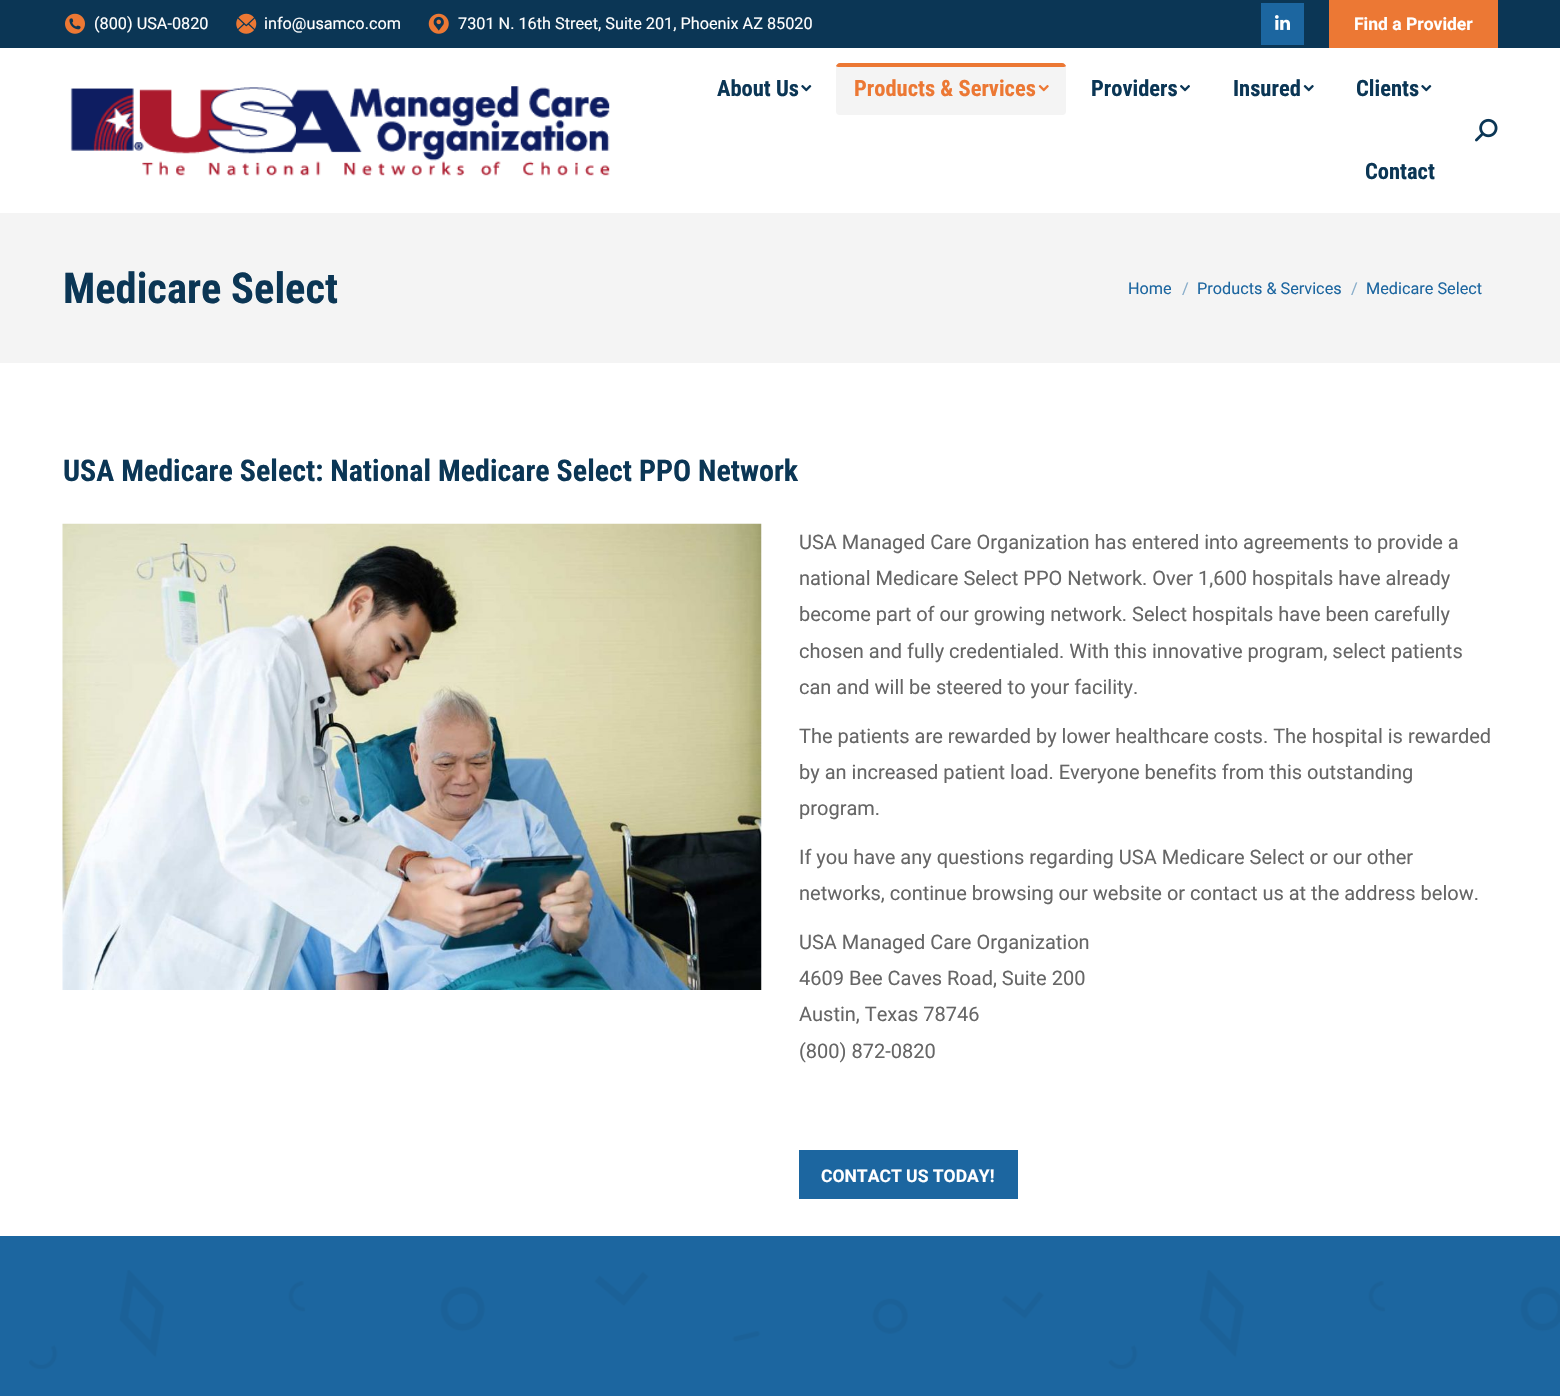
void draw(SkCanvas* c) {
SkPaint p;
p.setAntiAlias(true);
auto F=[&](const char* family, int weight, float size, bool italic = false){SkFontStyle style(weight, SkFontStyle::kNormal_Width,italic ? SkFontStyle::kItalic_Slant : SkFontStyle::kUpright_Slant);SkFont result(fontMgr->matchFamilyStyle(family, style), size);result.setSubpixel(true);return result;};
auto T=[&](const char* s, float x, float y, const SkFont& font){c->drawString(s, x, y, font, p);};
auto R=[&](float x, float y, float w, float h){c->drawRect(SkRect::MakeXYWH(x, y, w, h), p);};
auto Q=[&](float x, float y, float w, float h, float radius){c->drawRoundRect(SkRect::MakeXYWH(x, y, w, h), radius, radius, p);};
auto I=[&](const char* path, float x, float y, float w, float h){auto image = SkImages::DeferredFromEncodedData(SkData::MakeFromFileName(path));c->drawImageRect(image, SkRect::MakeXYWH(x, y, w, h), SkSamplingOptions());};
auto P=[&](const char* data, bool evenOdd = false){SkPath result = *SkParsePath::FromSVGString(data);if (evenOdd) result.setFillType(SkPathFillType::kEvenOdd);return result;};
c->clear(0xffffffff);
p.setColor(0xff0b3655);
R(0,0,1560,48);
I("1.png",65,13,20,21);
auto f1 = F("Roboto",400,16.25);
p.setColor(0xffffffff);
T("(800) USA-0820",94,29,f1);
I("2.png",236,13,21,21);
T("info@usamco.com",264,29,f1);
I("3.png",428,13,21,21);
T("7301 N. 16th Street, Suite 201, Phoenix AZ 85020",458,29,f1);
p.setColor(0xff1c66a0);
R(1261,3,43,42);
I("4.png",1275,15,15,15);
p.setColor(0xffec7834);
R(1329,0,169,48);
auto f2 = F("Roboto",700,17.5);
p.setColor(0xffffffff);
T("Find a Provider",1354,30,f2);
I("5.png",70,86,540,90);
auto f3 = F("Roboto Condensed",700,22.5);
p.setColor(0xff0b3655);
T("About Us",717,96,f3);
I("6.png",801,85,11,7);
p.setColor(0xfff4f4f4);
Q(836,63,230,52,4);
p.setColor(0xffec7834);
c->drawPath(P("M840 63h222c2 0 4 2 4 4v-2c0 1-1 2-2 2h-226c-1 0-2-1-2-2v2c0-2 2-4 4-4z"),p);
T("Products & Services",854,96,f3);
I("7.png",1038,85,11,7);
p.setColor(0xff0b3655);
T("Providers",1091,96,f3);
I("8.png",1180,85,10,7);
T("Insured",1233,96,f3);
I("9.png",1303,85,11,7);
T("Clients",1356,96,f3);
I("6.png",1421,85,11,7);
T("Contact",1365,179,f3);
I("10.png",1475,118,23,24);
p.setColor(0xfff4f4f4);
R(0,213,1560,150);
auto f4 = F("Roboto Condensed",700,42.5);
p.setColor(0xff0b3655);
T("Medicare Select",63,303,f4);
p.setColor(0xff1c66a0);
T("Home",1128,294,f1);
p.setColor(0xff88adca);
T("/",1182,294,f1);
p.setColor(0xff1c66a0);
T("Products & Services",1197,294,f1);
p.setColor(0xff88adca);
T("/",1351,294,f1);
p.setColor(0xff1c66a0);
T("Medicare Select",1366,294,f1);
auto f5 = F("Roboto Condensed",700,30);
p.setColor(0xff0b3655);
T("USA Medicare Select: National Medicare Select PPO Network",63,481,f5);
I("11.png",62,523,700,467);
auto f6 = F("Roboto",400,20);
p.setColor(0xff666666);
T("USA Managed Care Organization has entered into agreements to provide a",799,549,f6);
T("national Medicare Select PPO Network. Over 1,600 hospitals have already",799,585,f6);
T("become part of our growing network. Select hospitals have been carefully",799,621,f6);
T("chosen and fully credentialed. With this innovative program, select patients",799,658,f6);
T("can and will be steered to your facility.",799,694,f6);
T("The patients are rewarded by lower healthcare costs. The hospital is rewarded",799,743,f6);
T("by an increased patient load. Everyone benefits from this outstanding",799,779,f6);
T("program.",799,815,f6);
T("If you have any questions regarding USA Medicare Select or our other",799,864,f6);
T("networks, continue browsing our website or contact us at the address below.",799,900,f6);
T("USA Managed Care Organization",799,949,f6);
T("4609 Bee Caves Road, Suite 200",799,985,f6);
T("Austin, Texas 78746",799,1021,f6);
T("(800) 872-0820",799,1058,f6);
p.setColor(0xff1c66a0);
R(799,1150,219,49);
p.setColor(0xffffffff);
T("CONTACT US TODAY!",821,1182,f2);
p.setColor(0xff1c66a0);
R(0,1236,1560,160);
I("12.png",29,1270,1531,99);
}
